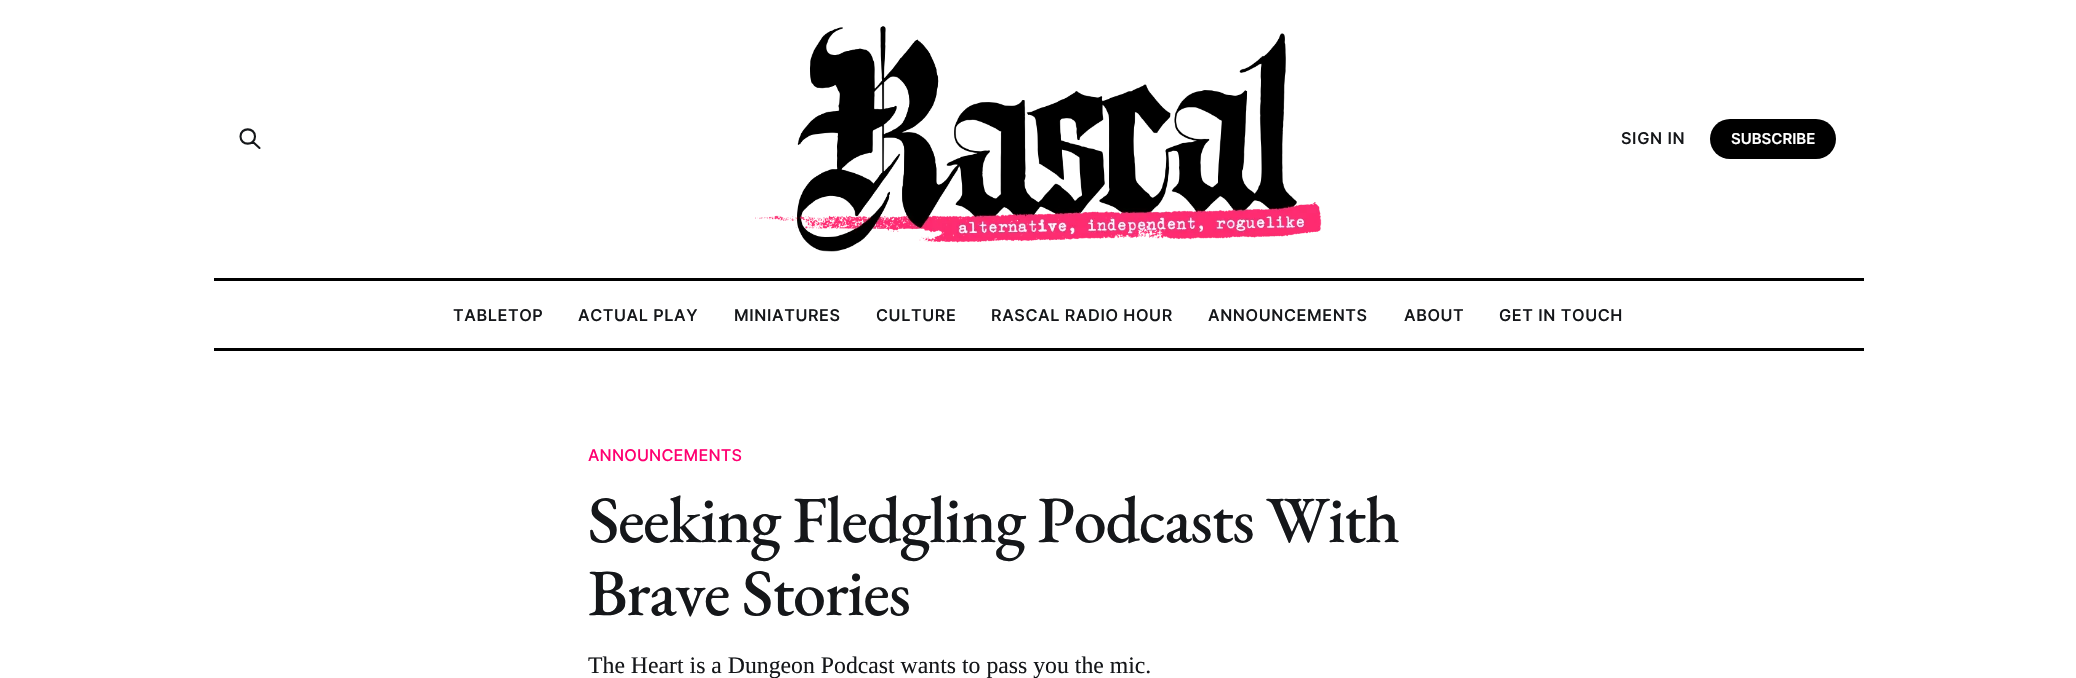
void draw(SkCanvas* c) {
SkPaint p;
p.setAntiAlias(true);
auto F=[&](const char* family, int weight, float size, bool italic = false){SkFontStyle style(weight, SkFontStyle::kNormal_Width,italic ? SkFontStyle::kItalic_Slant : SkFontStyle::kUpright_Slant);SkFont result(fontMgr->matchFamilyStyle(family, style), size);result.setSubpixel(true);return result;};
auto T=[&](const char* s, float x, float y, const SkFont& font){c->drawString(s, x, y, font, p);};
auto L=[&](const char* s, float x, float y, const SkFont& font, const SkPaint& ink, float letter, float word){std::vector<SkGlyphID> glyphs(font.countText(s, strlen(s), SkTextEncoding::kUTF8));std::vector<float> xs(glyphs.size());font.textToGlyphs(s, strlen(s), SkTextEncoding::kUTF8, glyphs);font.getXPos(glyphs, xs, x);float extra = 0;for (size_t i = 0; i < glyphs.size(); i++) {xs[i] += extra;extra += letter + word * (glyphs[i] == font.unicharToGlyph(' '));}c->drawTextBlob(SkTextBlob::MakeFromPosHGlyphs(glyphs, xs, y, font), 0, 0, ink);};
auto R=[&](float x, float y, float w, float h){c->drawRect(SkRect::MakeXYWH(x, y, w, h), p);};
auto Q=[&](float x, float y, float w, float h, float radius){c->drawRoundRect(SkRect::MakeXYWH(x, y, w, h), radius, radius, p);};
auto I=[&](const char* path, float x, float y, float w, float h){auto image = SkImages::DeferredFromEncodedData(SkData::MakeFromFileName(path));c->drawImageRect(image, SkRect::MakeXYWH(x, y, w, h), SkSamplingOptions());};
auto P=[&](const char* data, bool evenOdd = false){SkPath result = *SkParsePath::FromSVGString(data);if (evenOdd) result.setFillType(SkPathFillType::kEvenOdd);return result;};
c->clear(0xffffffff);
I("1.png",755,26,567,226);
p.setStroke(true);
p.setStrokeWidth(2.1);
p.setStrokeCap(SkPaint::kRound_Cap);
p.setStrokeJoin(SkPaint::kRound_Join);
p.setColor(0xff15171a);
c->drawPath(P("M259.5 148l-6.5-6m2-5.5c0 9.5-14.5 9.5-14.5 0c0-9.5 14.5-9.5 14.5 0z"),p);
auto f1 = F("Inter",500,16.25);
p.setStroke(false);
L("SIGN IN",1621,144,f1,p,.6,0);
p.setColor(0xff000000);
Q(1710,119,126,40,20);
auto f2 = F("Inter",600,15);
p.setColor(0xffffffff);
T("SUBSCRIBE",1731,144,f2);
p.setColor(0xff000000);
R(214,278,1650,3);
p.setColor(0xff15171a);
L("TABLETOP",453,321,f1,p,.6,0);
L("ACTUAL PLAY",578,321,f1,p,.6,0);
L("MINIATURES",734,321,f1,p,.6,0);
L("CULTURE",876,321,f1,p,.6,0);
L("RASCAL RADIO HOUR",991,321,f1,p,.6,0);
L("ANNOUNCEMENTS",1208,321,f1,p,.6,0);
L("ABOUT",1404,321,f1,p,.6,0);
L("GET IN TOUCH",1499,321,f1,p,.6,0);
p.setColor(0xff000000);
R(214,348,1650,3);
auto f3 = F("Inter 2",500,16.25);
p.setColor(0xffff0071);
L("ANNOUNCEMENTS",588,461,f3,p,.2,0);
auto f4 = F("EB Garamond",500,66.1);
p.setColor(0xff15171a);
L("Seeking Fledgling Podcasts With",588,542,f4,p,-1.25,0);
L("Brave Stories",588,615,f4,p,-1.25,0);
auto f5 = F("Liberation Serif",400,23.75);
T("The Heart is a Dungeon Podcast wants to pass you the mic.",588,673,f5);
}
